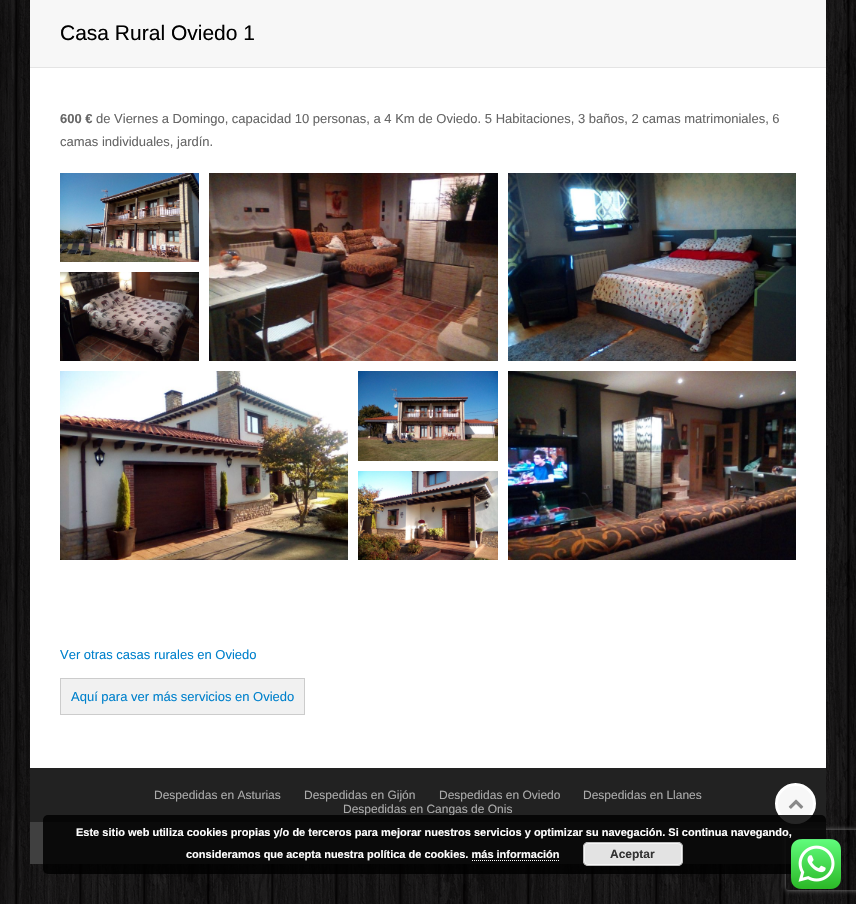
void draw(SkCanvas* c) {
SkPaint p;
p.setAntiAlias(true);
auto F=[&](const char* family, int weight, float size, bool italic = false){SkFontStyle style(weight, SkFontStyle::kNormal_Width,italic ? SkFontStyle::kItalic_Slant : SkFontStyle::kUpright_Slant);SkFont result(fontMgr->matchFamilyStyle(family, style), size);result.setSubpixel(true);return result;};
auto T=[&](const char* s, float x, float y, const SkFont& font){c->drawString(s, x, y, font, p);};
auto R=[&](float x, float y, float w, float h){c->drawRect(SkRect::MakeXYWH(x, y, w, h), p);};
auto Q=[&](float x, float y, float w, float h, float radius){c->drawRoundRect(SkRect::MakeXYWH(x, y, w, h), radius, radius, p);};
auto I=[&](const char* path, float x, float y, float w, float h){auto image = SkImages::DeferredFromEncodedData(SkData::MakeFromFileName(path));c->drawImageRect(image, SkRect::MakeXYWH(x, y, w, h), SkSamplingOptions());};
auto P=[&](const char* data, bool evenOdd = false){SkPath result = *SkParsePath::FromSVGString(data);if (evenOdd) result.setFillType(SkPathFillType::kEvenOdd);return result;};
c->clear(0xffffffff);
I("1.png",0,0,856,904);
p.setColor(0xffffffff);
R(30,68,796,700);
p.setColor(0xfff7f7f7);
R(30,0,796,67);
p.setColor(0xffe4e4e4);
R(30,67,796,1);
auto f1 = F("Liberation Sans",400,21);
p.setColor(0xff000000);
T("Casa Rural Oviedo 1",60,40,f1);
auto f2 = F("Liberation Sans",700,13);
p.setColor(0xff666666);
T("600 €",60,123,f2);
auto f3 = F("Liberation Sans",400,13);
T("de Viernes a Domingo, capacidad 10 personas, a 4 Km de Oviedo. 5 Habitaciones, 3 baños, 2 camas matrimoniales, 6",96,123,f3);
T("camas individuales, jardín.",60,146,f3);
I("2.png",60,173,139,89);
I("3.png",209,173,289,188);
I("4.png",508,173,288,188);
I("5.png",60,272,139,89);
I("6.png",60,371,288,189);
I("7.png",358,371,140,90);
I("8.png",508,371,288,189);
I("9.png",358,471,140,89);
p.setColor(0xff0081cc);
T("Ver otras casas rurales en Oviedo",60,659,f3);
p.setColor(0xfff1f1f1);
c->drawRect(SkRect::MakeXYWH(60.5,678.5,244,36),p);
p.setStroke(true);
p.setStrokeWidth(1);
p.setColor(0xffcccccc);
c->drawRect(SkRect::MakeXYWH(60.5,678.5,244,36),p);
p.setStroke(false);
p.setColor(0xff0081cc);
T("Aquí para ver más servicios en Oviedo",71,701,f3);
p.setColor(0xff222222);
R(30,768,796,54);
auto f4 = F("Liberation Sans",400,12);
p.setColor(0xffaaaaaa);
T("Despedidas en Asturias",154,799,f4);
T("Despedidas en Gijón",304,799,f4);
T("Despedidas en Oviedo",439,799,f4);
T("Despedidas en Llanes",583,799,f4);
T("Despedidas en Cangas de Onis",343,813,f4);
p.setColor(0xff404040);
R(30,822,796,42);
c->save();
c->clipPath(P("M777 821h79v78h-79zm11 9h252c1 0 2 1 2 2v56c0 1-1 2-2 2h-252c-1 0-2-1-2-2v-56c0-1 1-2 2-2z",true),true);
p.setColor(0xff808080);
p.setMaskFilter(SkMaskFilter::MakeBlur(kNormal_SkBlurStyle, 2.5));
c->drawRoundRect(SkRect::MakeXYWH(786,830,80,60),2,2,p);
p.setMaskFilter(nullptr);
c->restore();
p.setColor(0xfff7f7f7);
c->drawCircle(795.5,803.5,19,p);
p.setStroke(true);
p.setStrokeWidth(3);
p.setColor(0xffffffff);
c->drawCircle(795.5,803.5,19,p);
I("10.png",788,799,16,10);
p.setStroke(false);
p.setColor(0xd9000000);
Q(43,815,783,59,5);
auto f5 = F("Liberation Sans",700,11);
p.setColor(0xffffffff);
T("Este sitio web utiliza cookies propias y/o de terceros para mejorar nuestros servicios y optimizar su navegación. Si continua navegando,",76,836,f5);
T("consideramos que acepta nuestra política de cookies. más información",186,858,f5);
p.setColor(0xffe3e3e3);
Q(583,842,100,24,5);
p.setStroke(true);
p.setStrokeWidth(1);
p.setColor(0xfff6f6f6);
c->drawRoundRect(SkRect::MakeXYWH(584.5,843.5,97,21),3.5,3.5,p);
p.setColor(0xffbbbbbb);
c->drawRoundRect(SkRect::MakeXYWH(583.5,842.5,99,23),4.5,4.5,p);
auto f6 = F("Liberation Sans",700,12);
p.setStroke(false);
p.setColor(0xff333333);
T("Aceptar",610,858,f6);
p.setStroke(true);
p.setColor(0xffffffff);
p.setPathEffect(SkDashPathEffect::Make({{1,1}}, 0));
c->drawPath(P("M472 860.5h88"),p);
p.setPathEffect(nullptr);
I("11.png",791,839,50,50);
}
